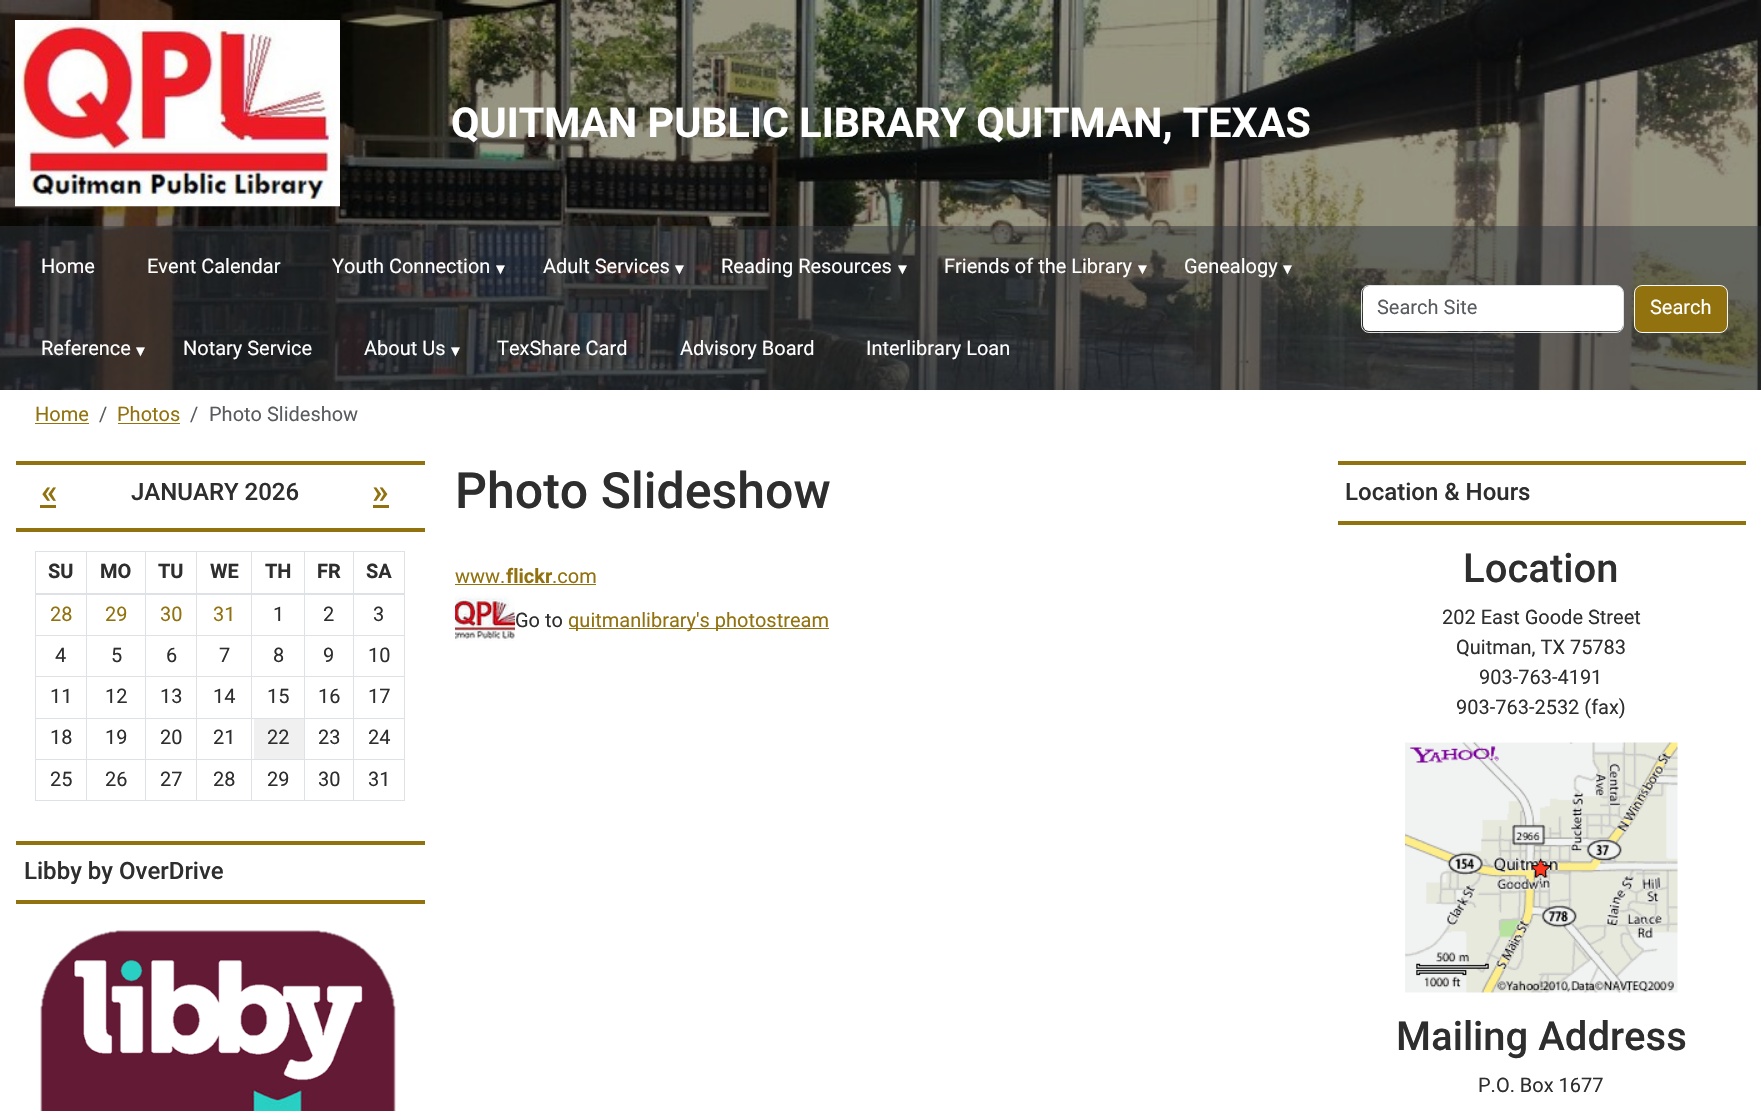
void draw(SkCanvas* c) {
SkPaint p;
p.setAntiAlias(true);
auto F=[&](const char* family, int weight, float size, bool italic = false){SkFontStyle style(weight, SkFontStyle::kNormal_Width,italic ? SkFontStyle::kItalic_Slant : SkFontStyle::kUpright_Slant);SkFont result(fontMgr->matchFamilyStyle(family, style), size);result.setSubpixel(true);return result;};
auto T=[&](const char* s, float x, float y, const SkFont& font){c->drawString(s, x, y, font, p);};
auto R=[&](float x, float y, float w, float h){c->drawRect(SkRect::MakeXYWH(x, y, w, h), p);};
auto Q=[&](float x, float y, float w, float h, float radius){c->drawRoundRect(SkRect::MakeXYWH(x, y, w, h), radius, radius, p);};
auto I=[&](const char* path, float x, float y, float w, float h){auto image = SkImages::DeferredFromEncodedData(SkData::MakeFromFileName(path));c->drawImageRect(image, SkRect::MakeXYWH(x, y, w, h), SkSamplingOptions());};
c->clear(0xffffffff);
I("1.png",0,0,1761,390);
p.setColor(0x69000000);
R(0,0,1761,226);
I("2.png",15,20,325,187);
auto f1 = F("Roboto",700,41.25);
p.setColor(0xffffffff);
T("QUITMAN PUBLIC LIBRARY QUITMAN, TEXAS",451,137,f1);
p.setColor(0xb3212529);
R(0,226,1761,164);
auto f2 = F("Roboto",400,20);
p.setColor(0xffffffff);
T("Home",41,273,f2);
T("Event Calendar",147,273,f2);
T("Youth Connection",332,273,f2);
auto f3 = F("Liberation Sans",400,15);
T("▼",493,274,f3);
T("Adult Services",543,273,f2);
T("▼",672,274,f3);
T("Reading Resources",721,273,f2);
T("▼",895,274,f3);
T("Friends of the Library",944,273,f2);
T("▼",1135,274,f3);
T("Genealogy",1184,273,f2);
T("▼",1280,274,f3);
T("Reference",41,355,f2);
T("▼",133,356,f3);
T("Notary Service",183,355,f2);
T("About Us",364,355,f2);
T("▼",448,356,f3);
T("TexShare Card",497,355,f2);
T("Advisory Board",680,355,f2);
T("Interlibrary Loan",866,355,f2);
Q(1363,286,260,45,6);
p.setStroke(true);
p.setStrokeWidth(1);
p.setColor(0xffdee2e6);
c->drawRoundRect(SkRect::MakeXYWH(1361.5,285.5,262,47),7.5,7.5,p);
p.setStroke(false);
p.setColor(0xff595c5f);
T("Search Site",1377,314,f2);
p.setColor(0xff91720e);
c->drawRoundRect(SkRect::MakeXYWH(1634.5,285.5,93,47),7.5,7.5,p);
p.setStroke(true);
p.setColor(0xfff8f9fa);
c->drawRoundRect(SkRect::MakeXYWH(1634.5,285.5,93,47),7.5,7.5,p);
p.setStroke(false);
p.setColor(0xffffffff);
T("Search",1650,314,f2);
p.setColor(0xff91720e);
T("Home",35,421,f2);
R(35,423,54,1);
p.setColor(0xff595c5f);
T("/",99,421,f2);
p.setColor(0xff91720e);
T("Photos",117,421,f2);
R(118,423,62,1);
p.setColor(0xff595c5f);
T("/",190,421,f2);
T("Photo Slideshow",209,421,f2);
p.setColor(0xff91720e);
R(16,461,409,4);
R(16,528,409,4);
auto f4 = F("Roboto",500,34);
T("«",41,503,f4);
R(40,505,16,3);
auto f5 = F("Roboto",500,24);
p.setColor(0xff2e2e2e);
T("JANUARY 2026",131,500,f5);
p.setColor(0xff91720e);
T("»",372,503,f4);
R(373,505,16,3);
p.setColor(0xffdee2e6);
R(35,551,370,1);
auto f6 = F("Roboto",700,20);
p.setColor(0xff2e2e2e);
T("SU",48,578,f6);
T("MO",100,578,f6);
T("TU",158,578,f6);
T("WE",210,578,f6);
T("TH",265,578,f6);
T("FR",317,578,f6);
T("SA",366,578,f6);
p.setColor(0xffdee2e6);
R(35,593,370,2);
p.setColor(0xff91720e);
T("28",50,621,f2);
T("29",105,621,f2);
T("30",160,621,f2);
T("31",213,621,f2);
p.setColor(0xff2e2e2e);
T("1",273,621,f2);
T("2",323,621,f2);
T("3",373,621,f2);
p.setColor(0xffdee2e6);
R(35,635,370,1);
p.setColor(0xff2e2e2e);
T("4",55,662,f2);
T("5",111,662,f2);
T("6",166,662,f2);
T("7",219,662,f2);
T("8",273,662,f2);
T("9",323,662,f2);
T("10",368,662,f2);
p.setColor(0xffdee2e6);
R(35,676,370,1);
p.setColor(0xff2e2e2e);
T("11",50,703,f2);
T("12",105,703,f2);
T("13",160,703,f2);
T("14",213,703,f2);
T("15",267,703,f2);
T("16",318,703,f2);
T("17",368,703,f2);
p.setColor(0xffdee2e6);
R(35,718,370,1);
p.setColor(0xff2e2e2e);
T("18",50,744,f2);
T("19",105,744,f2);
T("20",160,744,f2);
T("21",213,744,f2);
p.setColor(0xfff0f0f0);
R(254,719,50,40);
p.setColor(0xff2e2e2e);
T("22",267,744,f2);
T("23",318,744,f2);
T("24",368,744,f2);
p.setColor(0xffdee2e6);
R(35,759,370,1);
R(35,800,370,1);
R(35,551,1,250);
p.setColor(0xff2e2e2e);
T("25",50,786,f2);
p.setColor(0xffdee2e6);
R(86,551,1,250);
p.setColor(0xff2e2e2e);
T("26",105,786,f2);
p.setColor(0xffdee2e6);
R(145,551,1,250);
p.setColor(0xff2e2e2e);
T("27",160,786,f2);
p.setColor(0xffdee2e6);
R(196,551,1,250);
p.setColor(0xff2e2e2e);
T("28",213,786,f2);
p.setColor(0xffdee2e6);
R(251,551,1,250);
p.setColor(0xff2e2e2e);
T("29",267,786,f2);
p.setColor(0xffdee2e6);
R(304,551,1,250);
p.setColor(0xff2e2e2e);
T("30",318,786,f2);
p.setColor(0xffdee2e6);
R(404,551,1,250);
R(353,551,1,250);
p.setColor(0xff2e2e2e);
T("31",368,786,f2);
p.setColor(0xff91720e);
R(16,841,409,4);
R(16,900,409,4);
p.setColor(0xff2e2e2e);
T("Libby by OverDrive",24,879,f5);
I("3.png",40,930,356,181);
auto f7 = F("Roboto",500,50);
T("Photo Slideshow",455,508,f7);
p.setColor(0xff91720e);
T("www.",455,583,f2);
R(455,584,141,1);
T("flickr",506,583,f6);
T(".com",552,583,f2);
I("4.png",455,595,60,46);
p.setColor(0xff2e2e2e);
T("Go to",515,627,f2);
p.setColor(0xff91720e);
R(569,628,260,1);
T("quitmanlibrary's photostream",568,627,f2);
R(1338,461,408,4);
R(1338,521,408,4);
p.setColor(0xff2e2e2e);
T("Location & Hours",1345,500,f5);
auto f8 = F("Roboto",500,40);
T("Location",1463,582,f8);
T("202 East Goode Street",1442,624,f2);
T("Quitman, TX 75783",1456,654,f2);
T("903-763-4191",1479,684,f2);
T("903-763-2532 (fax)",1456,714,f2);
I("5.png",1405,742,273,251);
T("Mailing Address",1396,1050,f8);
T("P.O. Box 1677",1478,1092,f2);
}
